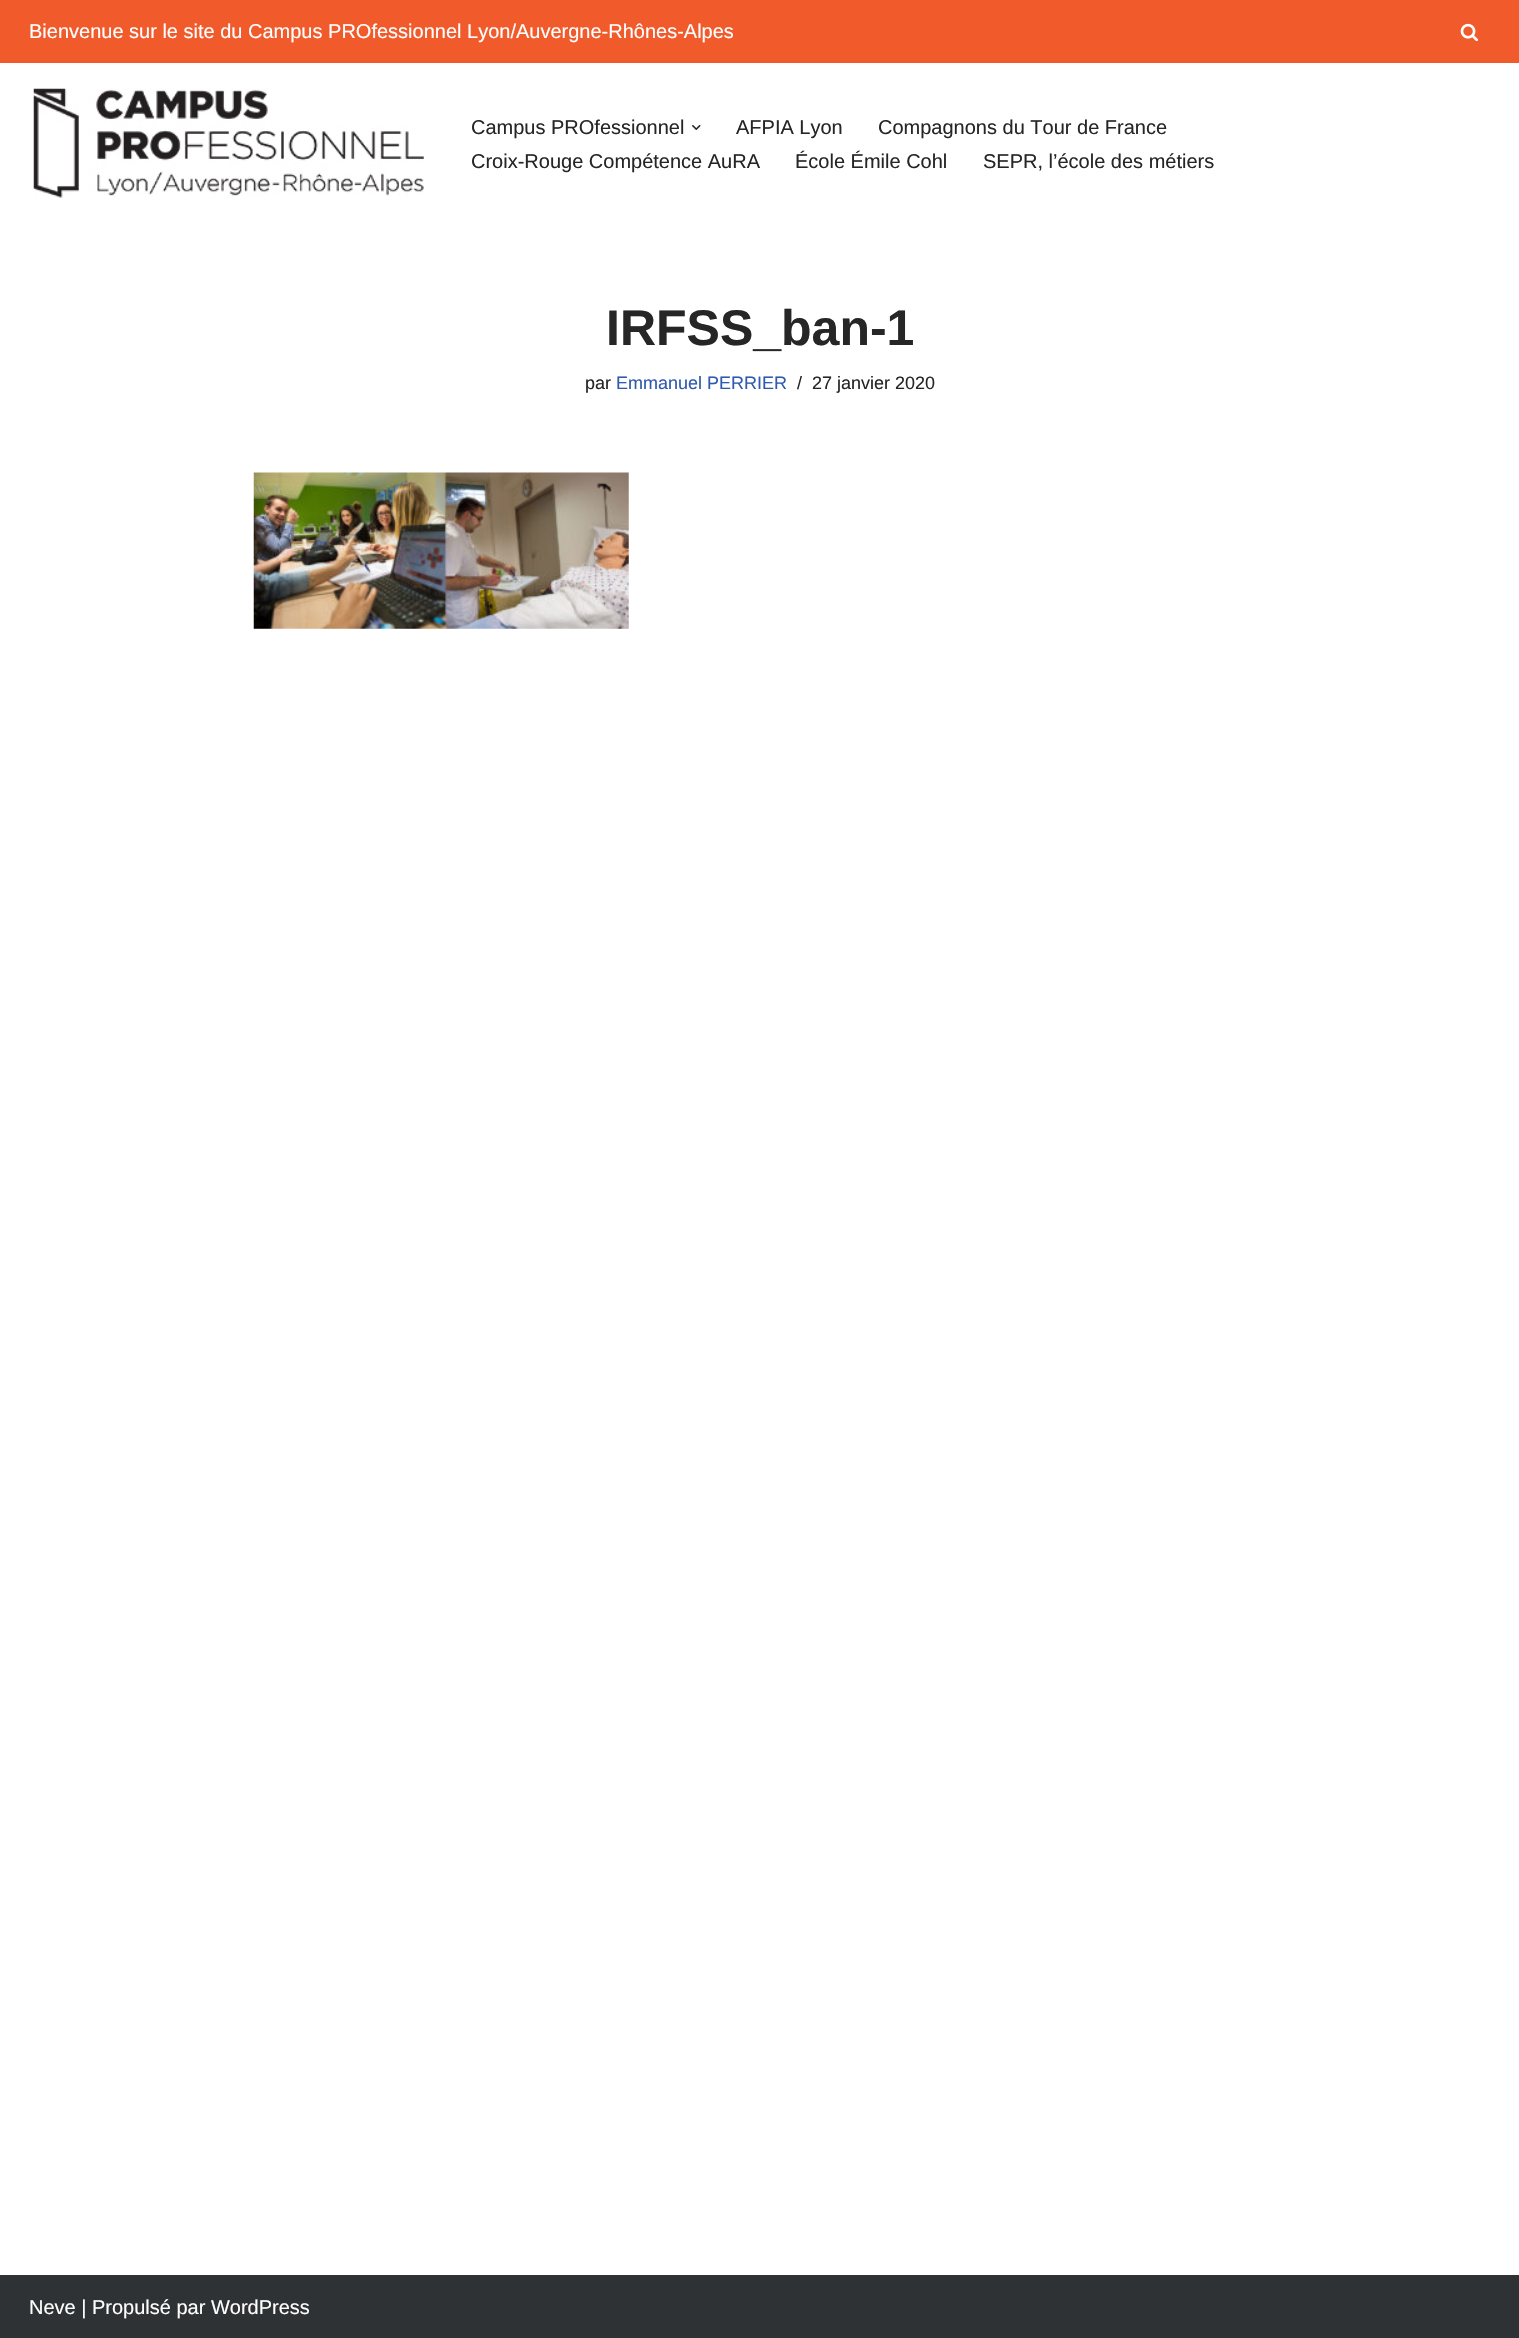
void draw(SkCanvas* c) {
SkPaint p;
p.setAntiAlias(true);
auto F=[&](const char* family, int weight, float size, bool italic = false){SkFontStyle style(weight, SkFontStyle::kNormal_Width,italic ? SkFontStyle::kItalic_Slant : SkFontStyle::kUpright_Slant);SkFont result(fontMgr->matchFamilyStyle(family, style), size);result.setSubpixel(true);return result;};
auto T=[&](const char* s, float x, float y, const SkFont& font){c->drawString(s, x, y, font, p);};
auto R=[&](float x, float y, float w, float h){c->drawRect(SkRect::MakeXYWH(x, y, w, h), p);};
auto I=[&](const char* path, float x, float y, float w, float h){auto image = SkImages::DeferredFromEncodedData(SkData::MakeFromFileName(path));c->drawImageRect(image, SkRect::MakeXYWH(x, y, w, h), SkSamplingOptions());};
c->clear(0xffffffff);
p.setColor(0xfff15a2b);
R(0,0,1519,63);
auto f1 = F("Liberation Sans",400,20);
p.setColor(0xffffffff);
T("Bienvenue sur le site du Campus PROfessionnel Lyon/Auvergne-Rhônes-Alpes",29,38,f1);
I("1.png",1460,23,19,18);
I("2.png",33,88,391,110);
p.setColor(0xff272626);
T("Campus PROfessionnel",471,134,f1);
I("3.png",692,125,9,5);
T("AFPIA Lyon",736,134,f1);
T("Compagnons du Tour de France",878,134,f1);
T("Croix-Rouge Compétence AuRA",471,168,f1);
T("École Émile Cohl",795,168,f1);
T("SEPR, l’école des métiers",983,168,f1);
auto f2 = F("Liberation Sans",700,50);
T("IRFSS_ban-1",606,345,f2);
auto f3 = F("Liberation Sans",400,18);
T("par",585,389,f3);
p.setColor(0xff2f5aae);
T("Emmanuel PERRIER",616,389,f3);
p.setColor(0xff272626);
T("/",797,389,f3);
T("27 janvier 2020",812,389,f3);
I("4.png",253,472,376,157);
p.setColor(0xff2f3235);
R(0,2275,1519,63);
p.setColor(0xffffffff);
T("Neve | Propulsé par WordPress",29,2314,f1);
}
